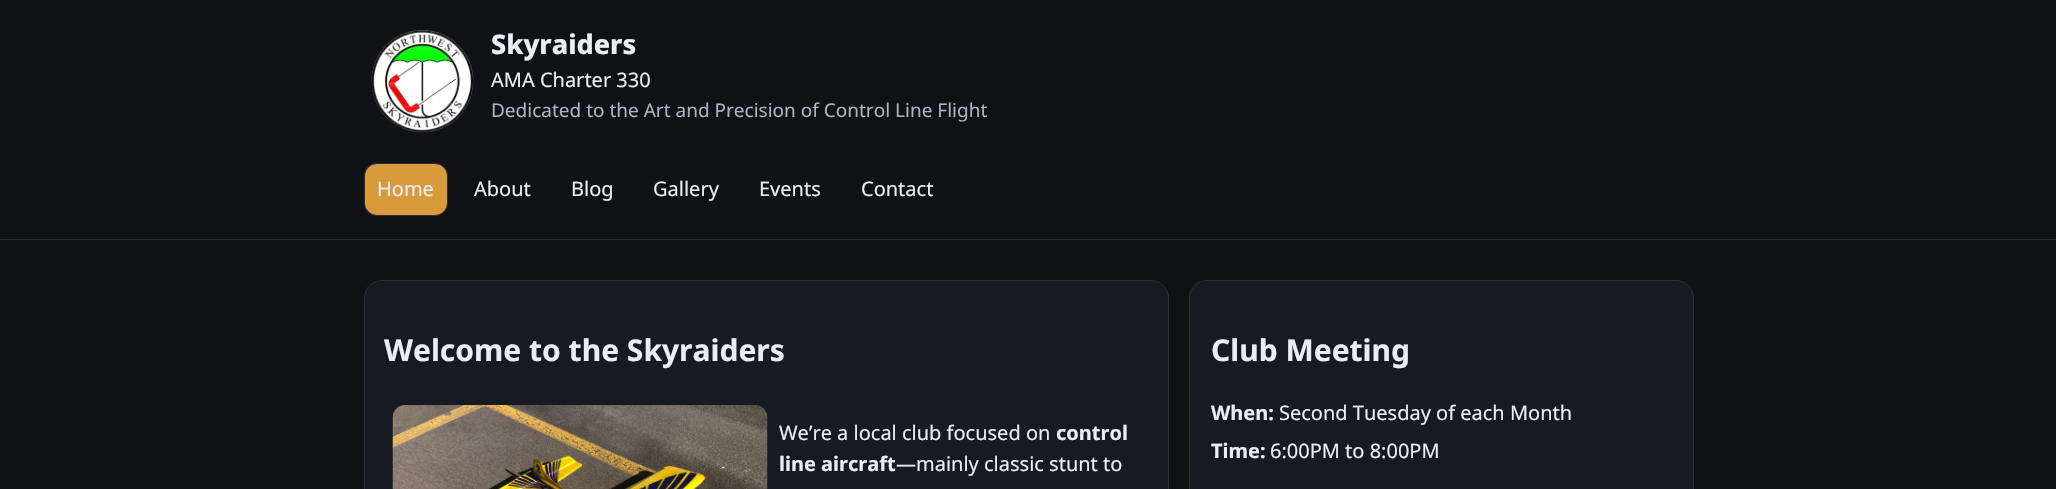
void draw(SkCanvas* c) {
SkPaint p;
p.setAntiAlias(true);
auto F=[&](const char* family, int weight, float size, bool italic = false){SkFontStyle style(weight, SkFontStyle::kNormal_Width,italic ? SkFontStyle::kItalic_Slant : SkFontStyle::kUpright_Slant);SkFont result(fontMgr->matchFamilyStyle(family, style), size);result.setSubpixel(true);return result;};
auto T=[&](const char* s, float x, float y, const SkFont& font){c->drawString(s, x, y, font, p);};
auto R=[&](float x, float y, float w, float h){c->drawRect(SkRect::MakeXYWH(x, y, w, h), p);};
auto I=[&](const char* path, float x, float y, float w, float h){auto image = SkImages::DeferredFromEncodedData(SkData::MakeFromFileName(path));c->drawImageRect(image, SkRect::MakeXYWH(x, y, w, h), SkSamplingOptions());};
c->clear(0xff0f1115);
p.setColor(0xff2a2f3a);
R(0,239,2056,1);
I("1.png",371,30,103,103);
auto f1 = F("Noto Sans",800,27);
p.setColor(0xffe9eef5);
T("Skyraiders",491,54,f1);
auto f2 = F("Noto Sans",400,20);
T("AMA Charter 330",491,87,f2);
auto f3 = F("Noto Sans",400,19);
p.setColor(0xffaab3c2);
T("Dedicated to the Art and Precision of Control Line Flight",491,117,f3);
p.setColor(0xffd89a3a);
c->drawRoundRect(SkRect::MakeXYWH(364.5,163.5,83,52),12.5,12.5,p);
p.setStroke(true);
p.setStrokeWidth(1);
p.setColor(0xff2a2f3a);
c->drawRoundRect(SkRect::MakeXYWH(364.5,163.5,83,52),12.5,12.5,p);
p.setStroke(false);
p.setColor(0xffe9eef5);
T("Home",377,196,f2);
T("About",474,196,f2);
T("Blog",571,196,f2);
T("Gallery",653,196,f2);
T("Events",759,196,f2);
T("Contact",861,196,f2);
p.setColor(0xff171a21);
c->drawRoundRect(SkRect::MakeXYWH(364.5,280.5,804,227),17.5,17.5,p);
p.setStroke(true);
p.setColor(0xff2a2f3a);
c->drawRoundRect(SkRect::MakeXYWH(364.5,280.5,804,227),17.5,17.5,p);
auto f4 = F("Noto Sans",700,30);
p.setStroke(false);
p.setColor(0xffe9eef5);
T("Welcome to the Skyraiders",384,361,f4);
I("2.png",392,405,376,84);
T("We’re a local club focused on",779,440,f2);
auto f5 = F("Noto Sans",700,20);
T("control",1056,440,f5);
T("line aircraft",779,471,f5);
T("—mainly classic stunt to",896,471,f2);
p.setColor(0xff171a21);
c->drawRoundRect(SkRect::MakeXYWH(1189.5,280.5,504,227),17.5,17.5,p);
p.setStroke(true);
p.setColor(0xff2a2f3a);
c->drawRoundRect(SkRect::MakeXYWH(1189.5,280.5,504,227),17.5,17.5,p);
p.setStroke(false);
p.setColor(0xffe9eef5);
T("Club Meeting",1211,361,f4);
T("When:",1211,420,f5);
T("Second Tuesday of each Month",1279,420,f2);
T("Time:",1211,458,f5);
T("6:00PM to 8:00PM",1270,458,f2);
}
